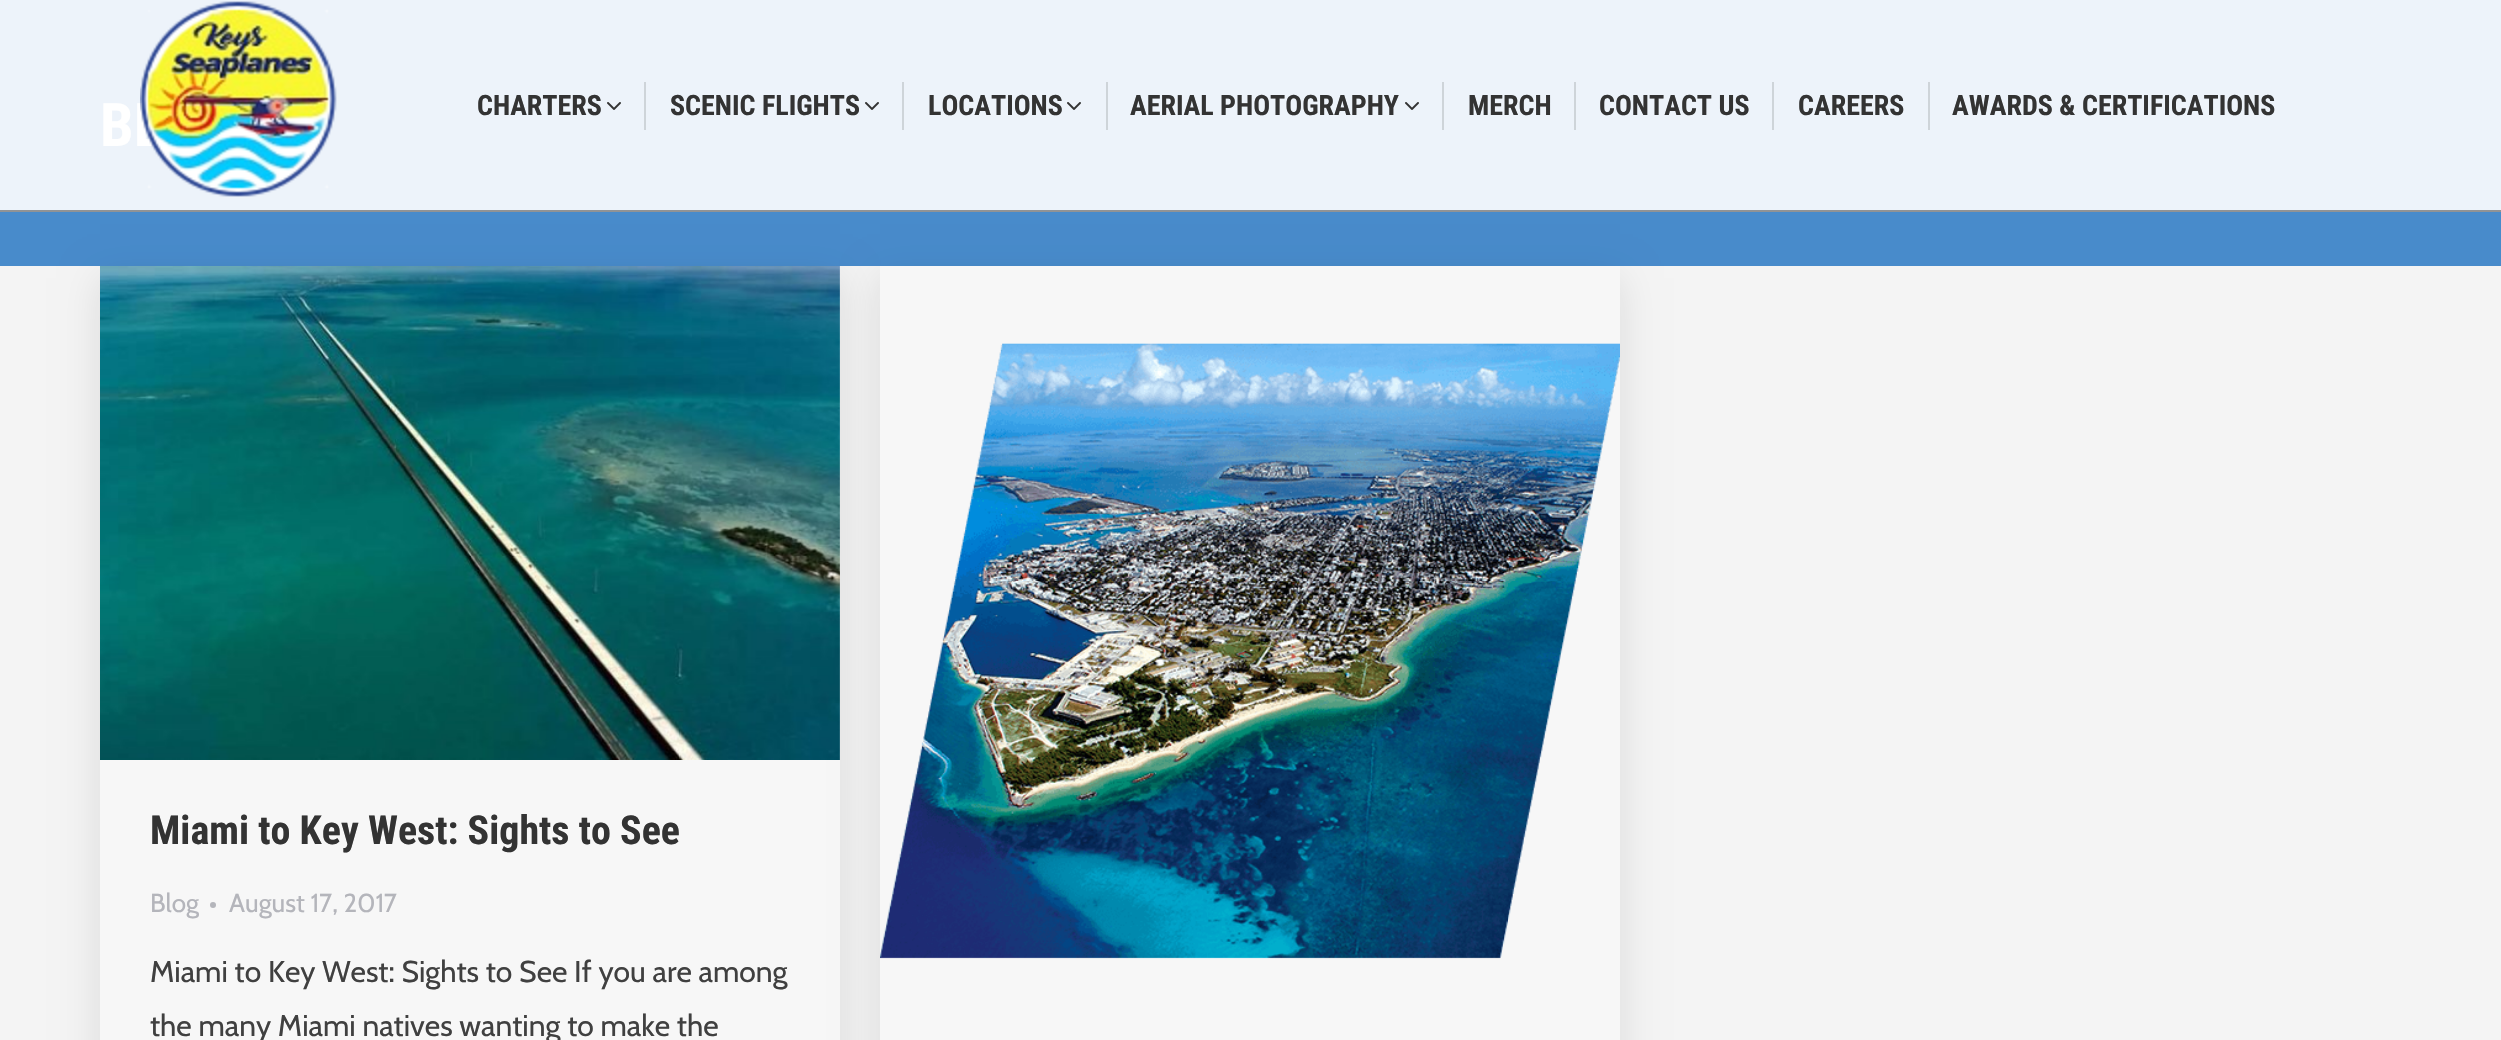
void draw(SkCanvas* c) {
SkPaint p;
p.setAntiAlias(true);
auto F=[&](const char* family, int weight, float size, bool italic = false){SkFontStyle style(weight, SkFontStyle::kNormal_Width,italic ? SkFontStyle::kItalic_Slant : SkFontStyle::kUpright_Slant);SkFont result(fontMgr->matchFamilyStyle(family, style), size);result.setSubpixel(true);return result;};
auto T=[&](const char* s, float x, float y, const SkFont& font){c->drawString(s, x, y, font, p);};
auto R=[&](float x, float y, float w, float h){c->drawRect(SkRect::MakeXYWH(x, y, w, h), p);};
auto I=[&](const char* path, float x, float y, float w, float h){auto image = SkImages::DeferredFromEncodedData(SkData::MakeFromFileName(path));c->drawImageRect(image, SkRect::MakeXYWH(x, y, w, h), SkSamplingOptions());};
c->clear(0xfff4f4f4);
p.setColor(0xff488bcb);
R(0,212,2501,54);
p.setColor(0xffedf3fa);
R(0,0,2501,210);
auto f1 = F("Roboto Condensed",700,60);
p.setColor(0xffffffff);
T("BE",100,146,f1);
p.setColor(0x1a000000);
p.setMaskFilter(SkMaskFilter::MakeBlur(kNormal_SkBlurStyle, 18));
c->drawRect(SkRect::MakeXYWH(100,278,740,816),p);
p.setMaskFilter(nullptr);
p.setColor(0xfff7f7f7);
R(100,266,740,774);
I("1.png",100,266,740,494);
auto f2 = F("Roboto Condensed",700,40);
p.setColor(0xff333333);
T("Miami to Key West: Sights to See",150,844,f2);
auto f3 = F("Cabin",400,26);
p.setColor(0xffb4b5bb);
T("Blog",150,912,f3);
c->drawCircle(213,905,3,p);
T("August 17, 2017",229,912,f3);
auto f4 = F("Cabin",400,30);
p.setColor(0xff404040);
T("Miami to Key West: Sights to See If you are among",150,982,f4);
T("the many Miami natives wanting to make the",150,1036,f4);
p.setColor(0x1a000000);
p.setMaskFilter(SkMaskFilter::MakeBlur(kNormal_SkBlurStyle, 18));
c->drawRect(SkRect::MakeXYWH(880,278,740,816),p);
p.setMaskFilter(nullptr);
p.setColor(0xfff7f7f7);
R(880,266,740,774);
I("2.png",880,343,740,616);
p.setColor(0xff909396);
R(0,210,2501,2);
I("3.png",140,1,197,196);
auto f5 = F("Roboto Condensed",700,28);
p.setColor(0xff333333);
T("CHARTERS",477,115,f5);
I("4.png",607,102,14,8);
p.setColor(0xffced4d9);
R(644,82,2,48);
p.setColor(0xff333333);
T("SCENIC FLIGHTS",670,115,f5);
I("4.png",865,102,14,8);
p.setColor(0xffced4d9);
R(902,82,2,48);
p.setColor(0xff333333);
T("LOCATIONS",928,115,f5);
I("4.png",1067,102,14,8);
p.setColor(0xffced4d9);
R(1106,82,2,48);
p.setColor(0xff333333);
T("AERIAL PHOTOGRAPHY",1130,115,f5);
I("4.png",1405,102,14,8);
p.setColor(0xffced4d9);
R(1442,82,2,48);
p.setColor(0xff333333);
T("MERCH",1468,115,f5);
p.setColor(0xffced4d9);
R(1574,82,2,48);
p.setColor(0xff333333);
T("CONTACT US",1599,115,f5);
p.setColor(0xffced4d9);
R(1772,82,2,48);
p.setColor(0xff333333);
T("CAREERS",1798,115,f5);
p.setColor(0xffced4d9);
R(1928,82,2,48);
p.setColor(0xff333333);
T("AWARDS & CERTIFICATIONS",1952,115,f5);
}
